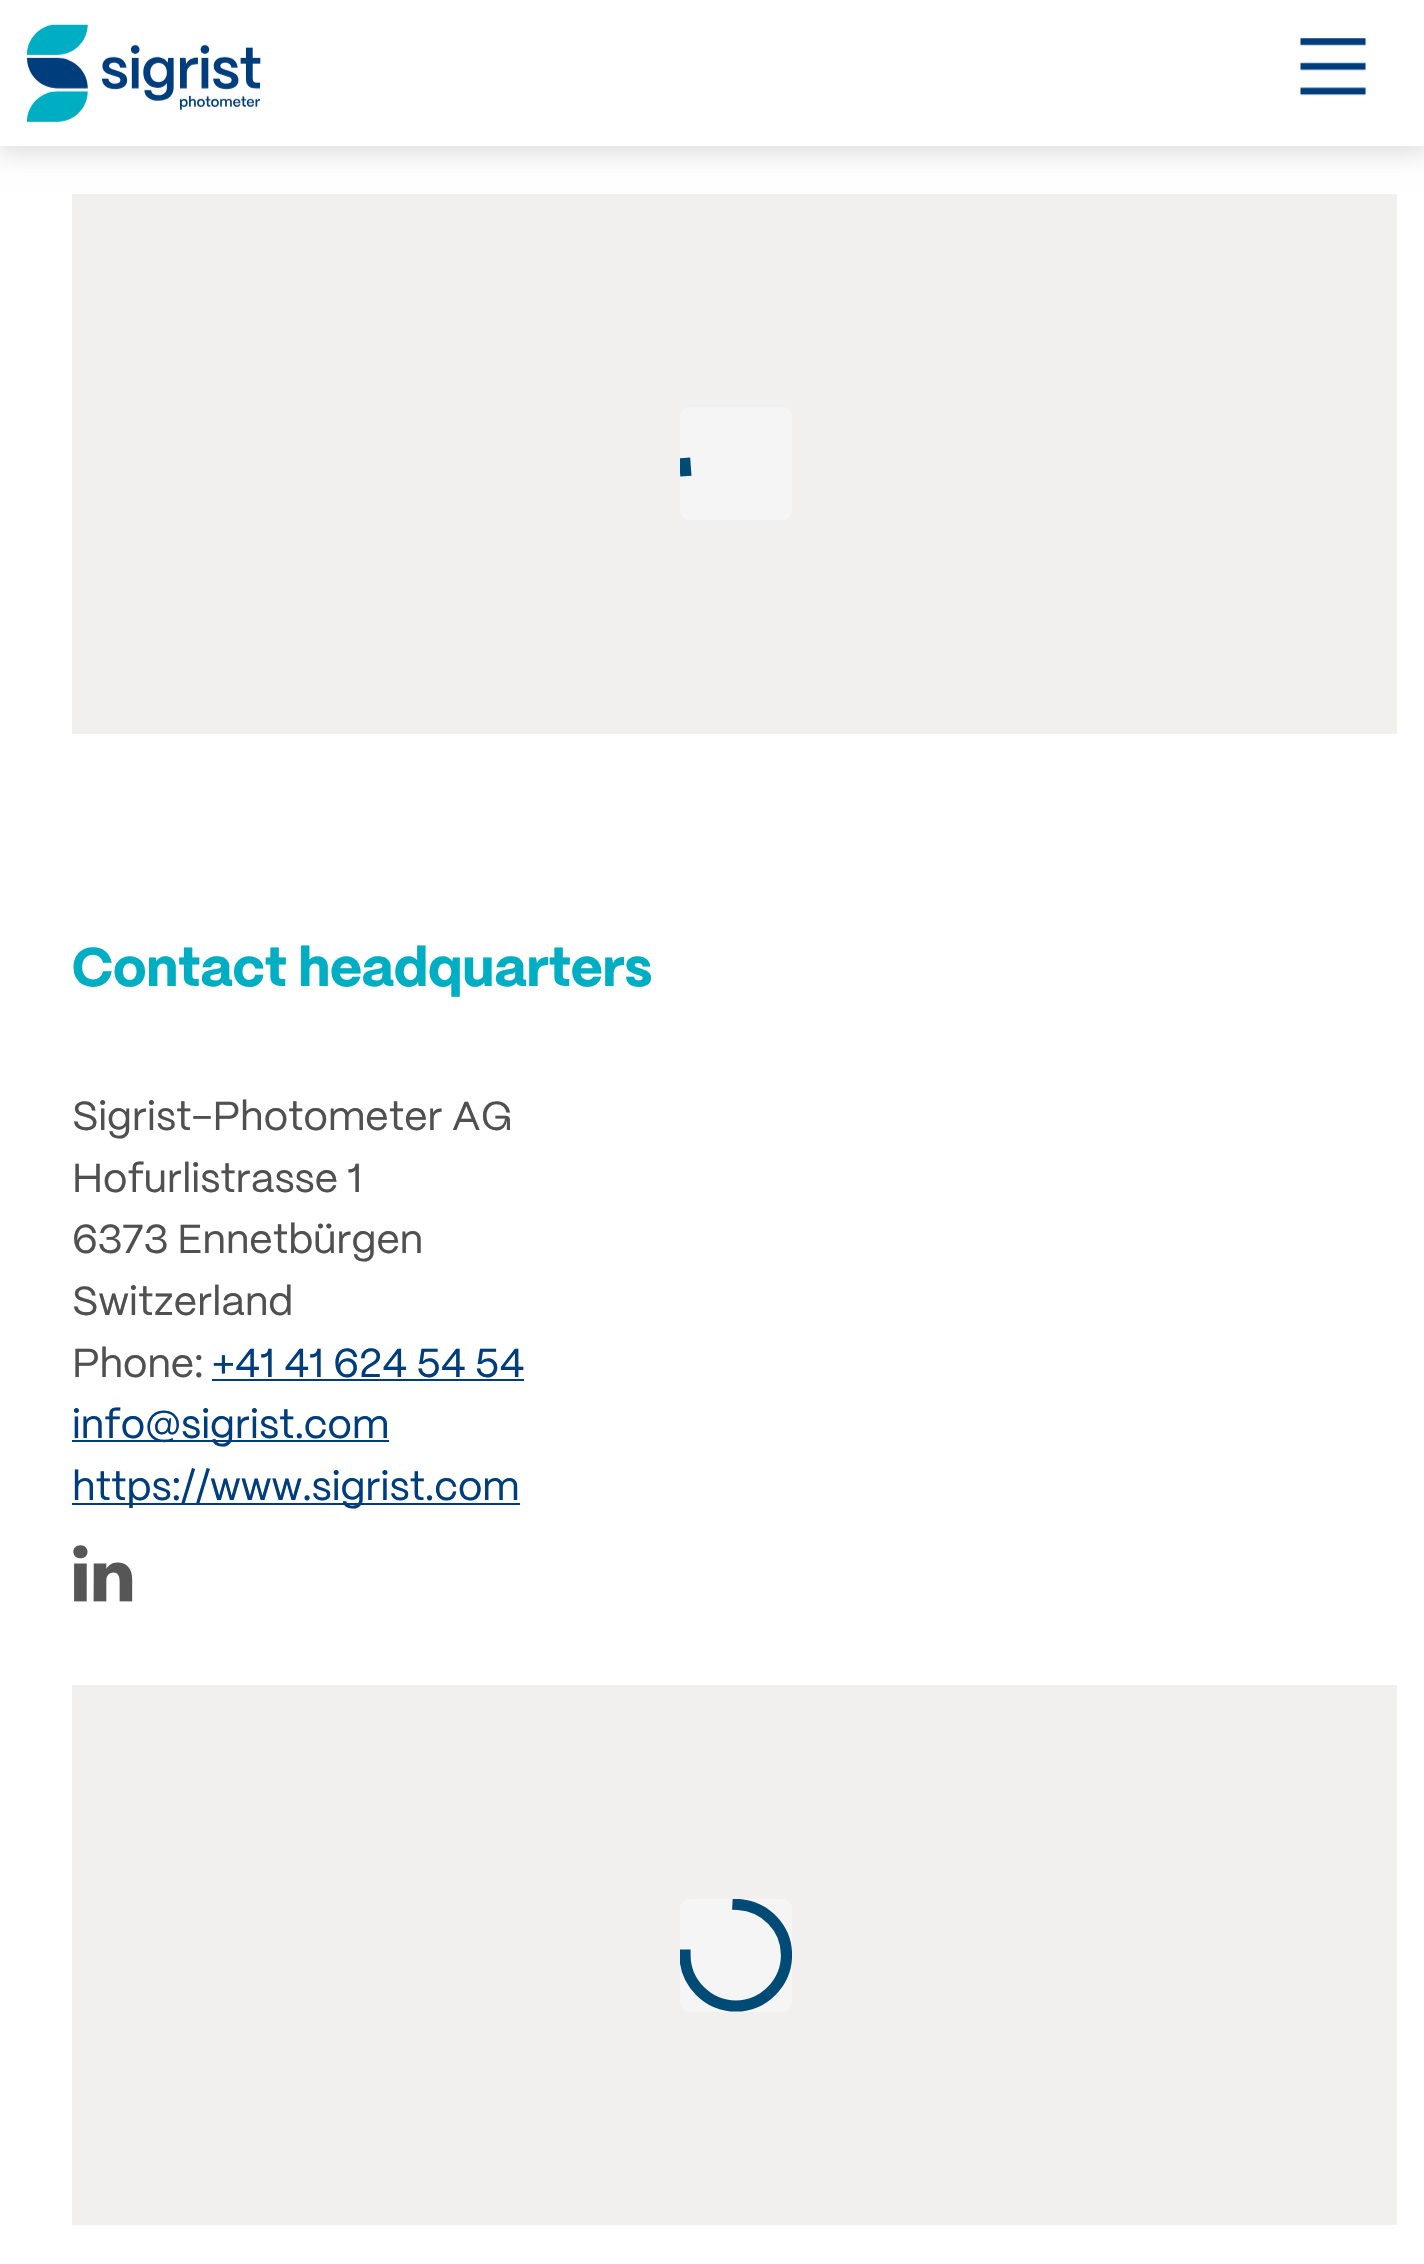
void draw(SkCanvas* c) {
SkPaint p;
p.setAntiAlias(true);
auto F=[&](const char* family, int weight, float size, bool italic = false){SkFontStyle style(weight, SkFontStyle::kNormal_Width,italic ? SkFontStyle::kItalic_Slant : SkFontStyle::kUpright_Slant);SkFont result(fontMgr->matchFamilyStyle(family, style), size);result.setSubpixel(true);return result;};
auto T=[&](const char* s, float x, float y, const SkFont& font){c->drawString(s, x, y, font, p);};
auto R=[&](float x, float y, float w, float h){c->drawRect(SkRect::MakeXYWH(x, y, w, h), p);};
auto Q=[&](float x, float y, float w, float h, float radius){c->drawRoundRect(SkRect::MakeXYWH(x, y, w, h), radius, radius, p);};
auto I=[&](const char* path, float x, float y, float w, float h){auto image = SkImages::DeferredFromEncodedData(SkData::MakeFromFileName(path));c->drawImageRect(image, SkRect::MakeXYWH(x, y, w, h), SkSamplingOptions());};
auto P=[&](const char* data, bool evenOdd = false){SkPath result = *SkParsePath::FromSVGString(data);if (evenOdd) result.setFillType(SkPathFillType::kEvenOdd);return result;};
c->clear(0xffffffff);
p.setColor(0x26000000);
p.setMaskFilter(SkMaskFilter::MakeBlur(kNormal_SkBlurStyle, 13.5));
c->drawRect(SkRect::MakeXYWH(-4,-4,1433,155),p);
p.setMaskFilter(nullptr);
p.setColor(0xffffffff);
R(0,0,1424,146);
I("1.png",27,24,234,98);
I("2.png",1300,38,67,58);
p.setColor(0xfff2f0ef);
R(72,194,1325,540);
p.setColor(0xfff5f5f5);
Q(680,407,112,113,9);
c->save();
c->clipRect(SkRect::MakeXYWH(680,407,112,113));
p.setStroke(true);
p.setStrokeWidth(11.2);
p.setStrokeCap(SkPaint::kSquare_Cap);
p.setColor(0xff004a76);
c->drawPath(P("M685.5 470.5l-.5-7"),p);
c->restore();
auto f1 = F("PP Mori",800,54);
p.setStroke(false);
p.setColor(0xff00aec3);
T("Contact headquarters",72,986,f1);
auto f2 = F("PP Mori",400,40.5);
p.setColor(0xff505050);
T("Sigrist-Photometer AG",72,1130,f2);
T("Hofurlistrasse 1",72,1192,f2);
T("6373 Ennetbürgen",72,1253,f2);
T("Switzerland",72,1315,f2);
T("Phone:",72,1377,f2);
p.setColor(0xff003d7c);
T("+41 41 624 54 54",212,1377,f2);
R(212,1379,312,2);
R(72,1440,317,2);
T("info@sigrist.com",72,1438,f2);
R(72,1503,448,2);
T("https://www.sigrist.com",72,1500,f2);
I("3.png",73,1545,60,57);
p.setColor(0xfff2f0ef);
R(72,1685,1325,540);
p.setColor(0xfff5f5f5);
Q(680,1899,112,113,9);
c->save();
c->clipRect(SkRect::MakeXYWH(680,1899,112,113));
p.setStroke(true);
p.setColor(0xff004a76);
c->drawPath(P("M738 1904.5c27 1.5 48.5 23.5 48.5 50.5c0 28-23 51-50.5 51c-28 0-51-23-51-51"),p);
c->restore();
}
